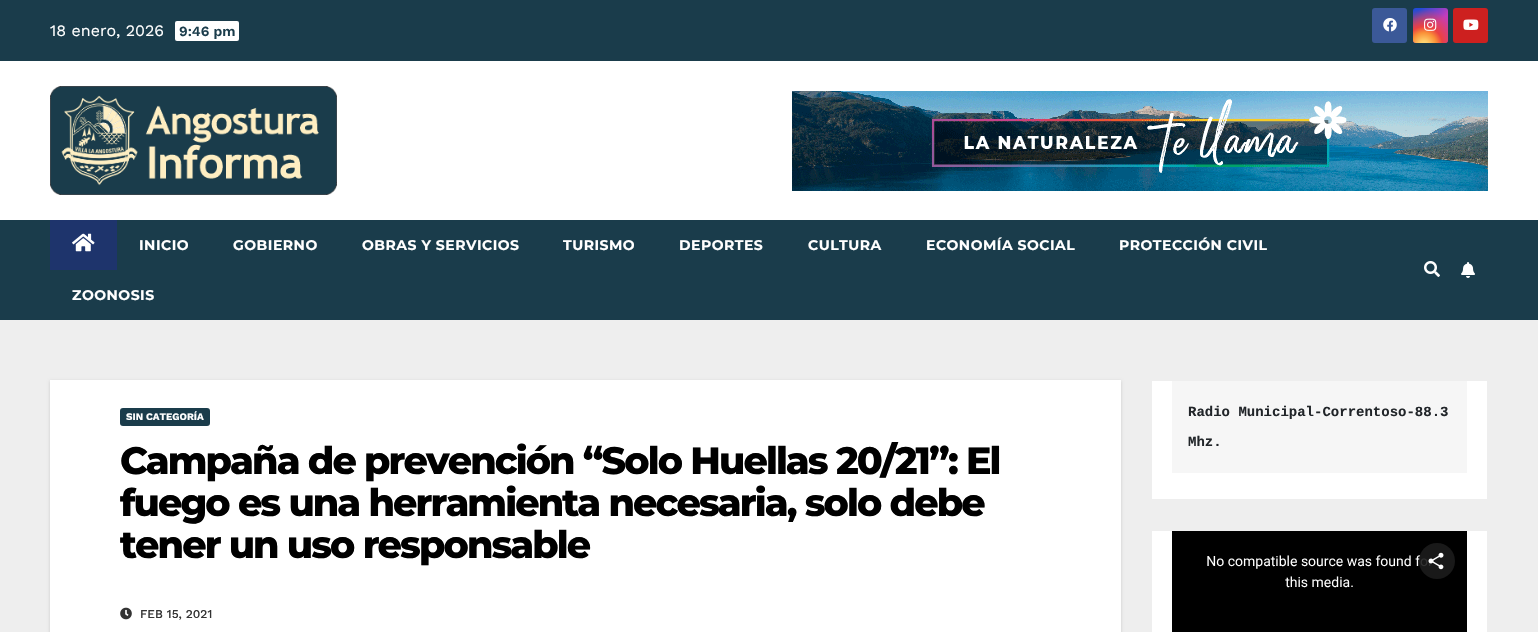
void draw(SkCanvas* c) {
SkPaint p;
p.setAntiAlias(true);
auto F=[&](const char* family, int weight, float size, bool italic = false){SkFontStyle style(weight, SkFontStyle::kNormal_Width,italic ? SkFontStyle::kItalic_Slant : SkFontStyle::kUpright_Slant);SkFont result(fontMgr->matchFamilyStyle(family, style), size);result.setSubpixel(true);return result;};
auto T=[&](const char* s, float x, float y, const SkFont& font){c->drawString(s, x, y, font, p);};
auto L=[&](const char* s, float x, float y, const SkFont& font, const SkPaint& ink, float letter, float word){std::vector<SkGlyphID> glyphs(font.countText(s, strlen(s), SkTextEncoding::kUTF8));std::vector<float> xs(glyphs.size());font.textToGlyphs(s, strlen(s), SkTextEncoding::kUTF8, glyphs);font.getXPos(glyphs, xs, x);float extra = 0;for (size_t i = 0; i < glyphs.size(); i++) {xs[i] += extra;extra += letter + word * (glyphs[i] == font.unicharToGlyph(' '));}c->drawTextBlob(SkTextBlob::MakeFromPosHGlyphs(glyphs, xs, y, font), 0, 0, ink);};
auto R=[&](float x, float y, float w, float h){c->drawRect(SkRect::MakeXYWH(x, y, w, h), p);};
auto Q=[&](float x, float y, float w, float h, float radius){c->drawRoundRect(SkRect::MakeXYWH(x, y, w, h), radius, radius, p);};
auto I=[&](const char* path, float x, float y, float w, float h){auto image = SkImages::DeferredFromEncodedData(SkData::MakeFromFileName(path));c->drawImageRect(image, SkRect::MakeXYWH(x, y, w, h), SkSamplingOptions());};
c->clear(0xffeeeeee);
p.setColor(0xff1a3c4b);
R(0,0,1538,61);
auto f1 = F("Work Sans",400,16);
p.setColor(0xffffffff);
T("18 enero, 2026",50,36,f1);
Q(175,21,64,20,2);
auto f2 = F("Work Sans",600,14);
p.setColor(0xff1a3c4b);
T("9:46 pm",179,36,f2);
p.setColor(0xff3b5998);
Q(1372,8,35,35,3);
I("1.png",1383,18,14,14);
{
const SkColor colors[] = {0xff234bd7,0xffc33cbe};
const float stops[] = {.12,.58};
const SkPoint ends[] = {{1413,8}, {1448,43}};
p.setShader(SkGradientShader::MakeLinear(ends, colors, stops, 2, SkTileMode::kClamp));
p.setAlpha(255);
}
Q(1413,8,35,35,3);
{
const SkColor colors[] = {0xffffe17d,0xffffcd69,0xfffa9137,0xffeb4141,0x00eb4141};
const float stops[] = {0,.1,.28,.42,.82};
p.setShader(SkGradientShader::MakeRadial({1424,45}, 44, colors, stops, 5, SkTileMode::kClamp));
p.setAlpha(255);
}
Q(1413,8,35,35,3);
I("2.png",1424,18,13,13);
p.setShader(nullptr);
p.setColor(0xffcd201f);
Q(1453,8,35,35,3);
I("3.png",1463,19,16,11);
p.setColor(0xffffffff);
R(0,61,1538,159);
I("4.png",50,86,287,109);
I("5.png",792,91,696,100);
p.setColor(0xff1a3c4b);
R(0,220,1538,100);
p.setColor(0xff1e346c);
R(50,220,67,50);
I("6.png",72,233,23,19);
auto f3 = F("Montserrat",700,14);
p.setColor(0xffffffff);
L("INICIO",139,250,f3,p,.5,0);
L("GOBIERNO",233,250,f3,p,.5,0);
L("OBRAS Y SERVICIOS",362,250,f3,p,.5,0);
L("TURISMO",563,250,f3,p,.5,0);
L("DEPORTES",679,250,f3,p,.5,0);
L("CULTURA",808,250,f3,p,.5,0);
L("ECONOMÍA SOCIAL",926,250,f3,p,.5,0);
L("PROTECCIÓN CIVIL",1119,250,f3,p,.5,0);
L("ZOONOSIS",72,300,f3,p,.5,0);
I("7.png",1424,261,16,16);
I("8.png",1461,262,14,16);
p.setColor(0x26000000);
p.setMaskFilter(SkMaskFilter::MakeBlur(kNormal_SkBlurStyle, 1.5));
c->drawRect(SkRect::MakeXYWH(50,381,1071,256),p);
p.setMaskFilter(nullptr);
p.setColor(0xffffffff);
R(50,380,1071,252);
p.setColor(0xff1a3c4b);
Q(120,408,90,18,3);
auto f4 = F("Work Sans",700,10);
p.setColor(0xffffffff);
T("SIN CATEGORÍA",126,420,f4);
auto f5 = F("Montserrat",800,38);
p.setColor(0xff000000);
L("Campaña de prevención “Solo Huellas 20/21”: El",120,474,f5,p,-1.9,0);
L("fuego es una herramienta necesaria, solo debe",120,516,f5,p,-1.9,0);
L("tener un uso responsable",120,558,f5,p,-1.9,0);
I("9.png",120,607,12,13);
auto f6 = F("Work Sans",500,12);
p.setColor(0xff333333);
T("FEB 15, 2021",140,618,f6);
p.setColor(0xffffffff);
R(1152,381,335,118);
p.setColor(0xfff6f6f6);
R(1172,381,295,92);
auto f7 = F("Liberation Mono",700,14);
p.setColor(0xff212529);
T("Radio Municipal-Correntoso-88.3",1188,416,f7);
T("Mhz.",1188,446,f7);
p.setColor(0xffffffff);
R(1152,531,335,101);
I("10.png",1172,531,295,101);
}
